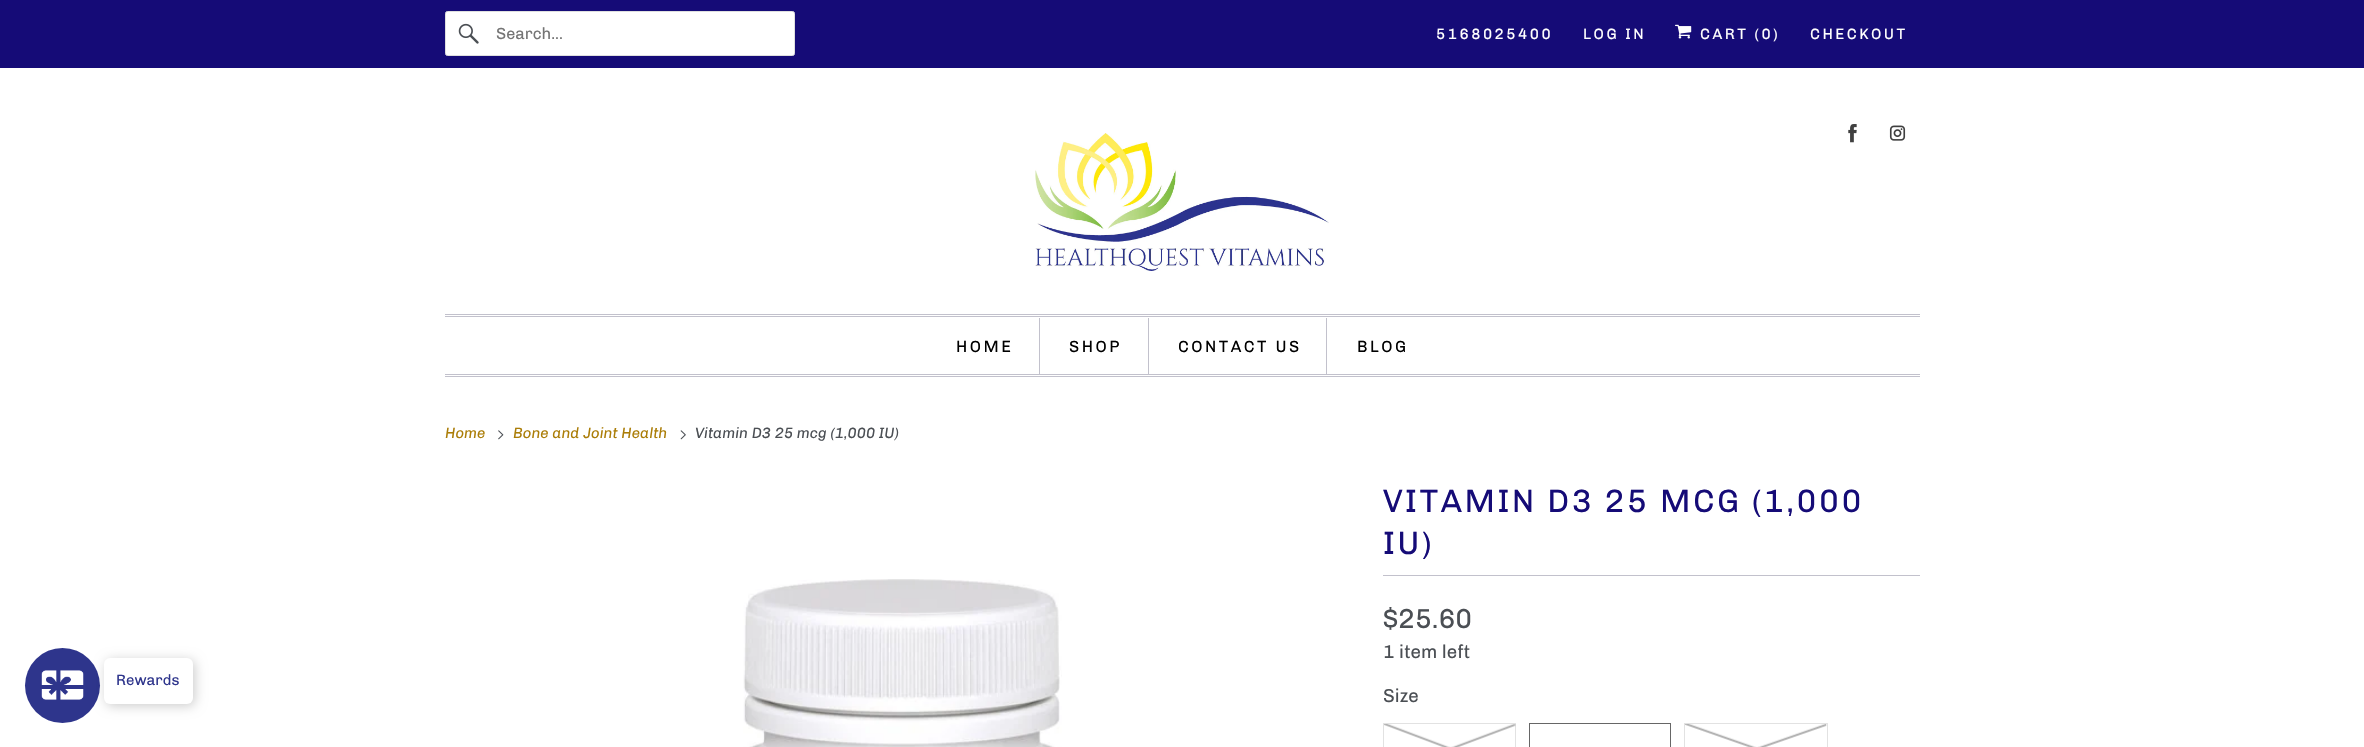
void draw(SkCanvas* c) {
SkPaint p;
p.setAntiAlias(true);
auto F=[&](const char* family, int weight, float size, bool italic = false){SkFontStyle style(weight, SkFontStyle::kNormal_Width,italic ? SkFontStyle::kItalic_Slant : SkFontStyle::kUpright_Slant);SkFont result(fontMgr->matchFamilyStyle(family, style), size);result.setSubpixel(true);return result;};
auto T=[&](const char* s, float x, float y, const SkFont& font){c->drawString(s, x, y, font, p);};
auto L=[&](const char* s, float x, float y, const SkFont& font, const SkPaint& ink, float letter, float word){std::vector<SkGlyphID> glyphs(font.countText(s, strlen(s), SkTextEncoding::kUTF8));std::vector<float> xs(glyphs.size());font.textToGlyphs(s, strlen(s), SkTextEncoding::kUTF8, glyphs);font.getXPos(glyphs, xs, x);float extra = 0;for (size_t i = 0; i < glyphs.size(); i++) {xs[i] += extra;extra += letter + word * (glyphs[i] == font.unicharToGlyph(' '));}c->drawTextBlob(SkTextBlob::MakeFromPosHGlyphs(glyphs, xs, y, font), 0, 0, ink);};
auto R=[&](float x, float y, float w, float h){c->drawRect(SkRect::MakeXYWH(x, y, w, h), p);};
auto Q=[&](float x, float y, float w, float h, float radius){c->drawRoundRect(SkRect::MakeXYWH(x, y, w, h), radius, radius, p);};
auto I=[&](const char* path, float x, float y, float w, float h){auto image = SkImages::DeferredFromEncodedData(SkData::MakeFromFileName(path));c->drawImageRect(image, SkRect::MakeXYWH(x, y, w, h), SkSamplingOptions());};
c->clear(0xffffffff);
p.setColor(0xff150b77);
R(0,0,2364,68);
p.setColor(0xffffffff);
c->drawRoundRect(SkRect::MakeXYWH(445.5,11.5,349,44),2,2,p);
p.setStroke(true);
p.setStrokeWidth(1);
p.setColor(0xffdfdfdf);
c->drawRoundRect(SkRect::MakeXYWH(445.5,11.5,349,44),2,2,p);
I("1.png",458,23,21,21);
auto f1 = F("Chivo",400,16.25);
p.setStroke(false);
p.setColor(0xff757575);
T("Search...",496,39,f1);
auto f2 = F("Chivo",400,15);
p.setColor(0xffffffff);
L("5168025400",1436,39,f2,p,2.5,0);
L("LOG IN",1583,39,f2,p,2.5,0);
I("2.png",1675,24,17,15);
L("CART (0)",1700,39,f2,p,2.5,0);
L("CHECKOUT",1810,39,f2,p,2.5,0);
I("3.png",1035,133,294,138);
I("4.png",1848,124,9,19);
I("5.png",1889,125,17,16);
p.setColor(0xffc2c1cc);
R(445,314,1475,1);
R(445,316,1475,1);
R(445,374,1475,1);
R(445,376,1475,1);
R(1039,318,1,56);
p.setColor(0xff000000);
L("HOME",956,352,f1,p,2.5,0);
p.setColor(0xffc2c1cc);
R(1148,318,1,56);
p.setColor(0xff000000);
L("SHOP",1069,352,f1,p,2.5,0);
p.setColor(0xffc2c1cc);
R(1326,318,1,56);
p.setColor(0xff000000);
L("CONTACT US",1178,352,f1,p,2.5,0);
L("BLOG",1357,352,f1,p,2.5,0);
auto f3 = F("Chivo",400,15,true);
p.setColor(0xffab7d07);
T("Home",445,438,f3);
I("6.png",498,430,6,10);
T("Bone and Joint Health",513,438,f3);
I("7.png",680,430,6,10);
p.setColor(0xff4b4f54);
T("Vitamin D3 25 mcg (1,000 IU)",695,438,f3);
p.setColor(0xff2e358c);
c->drawCircle(62.5,685.5,37.5,p);
I("8.png",41,670,43,30);
p.setColor(0x33000000);
p.setMaskFilter(SkMaskFilter::MakeBlur(kNormal_SkBlurStyle, 6));
c->drawRoundRect(SkRect::MakeXYWH(106,660,89,46),6,6,p);
p.setMaskFilter(nullptr);
p.setColor(0xffffffff);
Q(104,658,89,46,6);
p.setColor(0xff2e358c);
T("Rewards",116,685,f2);
I("9.png",743,579,319,168);
p.setColor(0xffc2c1cc);
R(1383,575,537,1);
auto f4 = F("Chivo",400,32.5);
p.setColor(0xff150b77);
L("VITAMIN D3 25 MCG (1,000",1383,512,f4,p,2.5,0);
L("IU)",1383,554,f4,p,2.5,0);
auto f5 = F("Chivo",400,27.5);
p.setColor(0xff4b4f54);
T("$25.60",1383,628,f5);
auto f6 = F("Chivo",400,18.75);
T("1 item left",1383,658,f6);
T("Size",1383,702,f6);
p.setStroke(true);
p.setColor(0xffe2e2e2);
c->drawRect(SkRect::MakeXYWH(1383.5,723.5,132,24),p);
I("10.png",1384,724,132,23);
p.setColor(0xff666666);
c->drawRect(SkRect::MakeXYWH(1529.5,723.5,141,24),p);
p.setColor(0xffe2e2e2);
c->drawRect(SkRect::MakeXYWH(1684.5,723.5,143,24),p);
I("11.png",1685,724,142,23);
}
